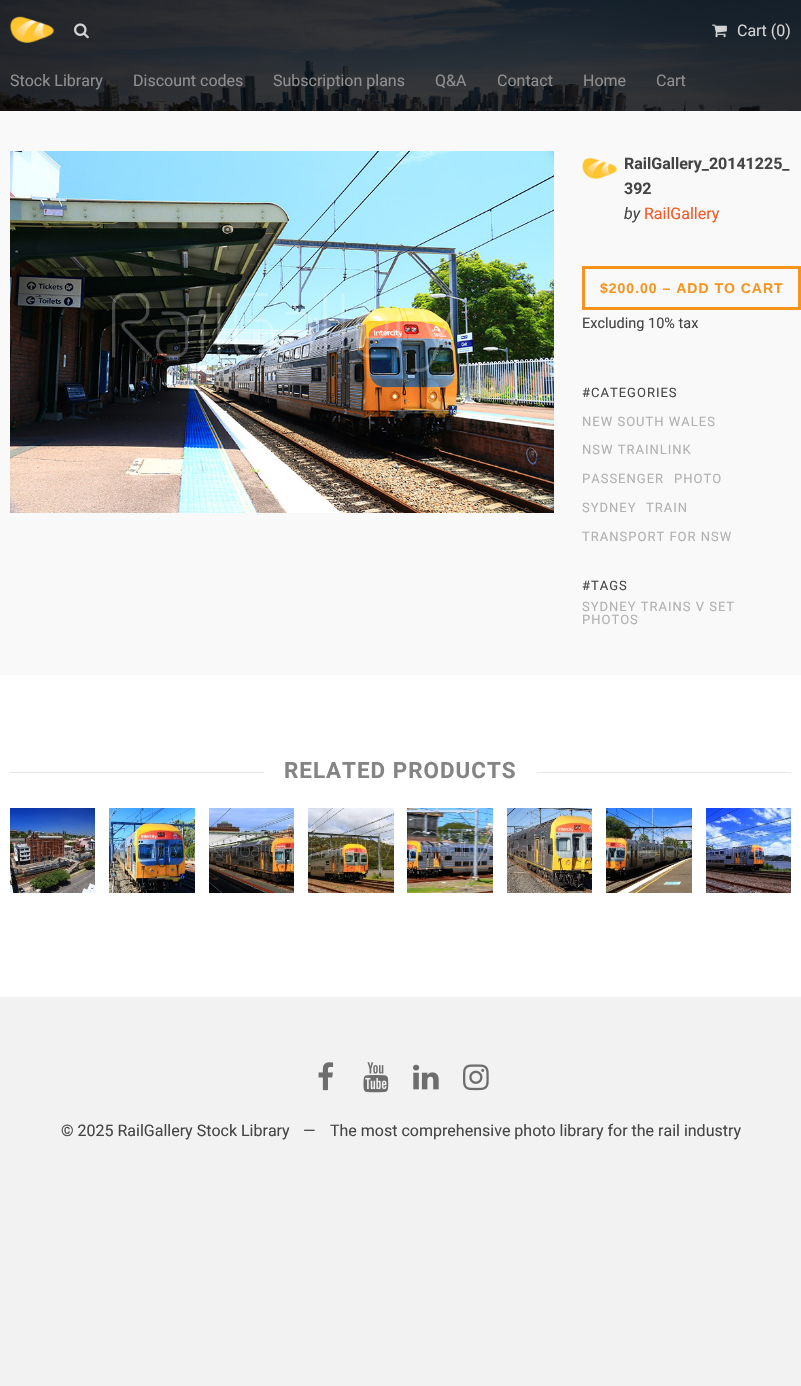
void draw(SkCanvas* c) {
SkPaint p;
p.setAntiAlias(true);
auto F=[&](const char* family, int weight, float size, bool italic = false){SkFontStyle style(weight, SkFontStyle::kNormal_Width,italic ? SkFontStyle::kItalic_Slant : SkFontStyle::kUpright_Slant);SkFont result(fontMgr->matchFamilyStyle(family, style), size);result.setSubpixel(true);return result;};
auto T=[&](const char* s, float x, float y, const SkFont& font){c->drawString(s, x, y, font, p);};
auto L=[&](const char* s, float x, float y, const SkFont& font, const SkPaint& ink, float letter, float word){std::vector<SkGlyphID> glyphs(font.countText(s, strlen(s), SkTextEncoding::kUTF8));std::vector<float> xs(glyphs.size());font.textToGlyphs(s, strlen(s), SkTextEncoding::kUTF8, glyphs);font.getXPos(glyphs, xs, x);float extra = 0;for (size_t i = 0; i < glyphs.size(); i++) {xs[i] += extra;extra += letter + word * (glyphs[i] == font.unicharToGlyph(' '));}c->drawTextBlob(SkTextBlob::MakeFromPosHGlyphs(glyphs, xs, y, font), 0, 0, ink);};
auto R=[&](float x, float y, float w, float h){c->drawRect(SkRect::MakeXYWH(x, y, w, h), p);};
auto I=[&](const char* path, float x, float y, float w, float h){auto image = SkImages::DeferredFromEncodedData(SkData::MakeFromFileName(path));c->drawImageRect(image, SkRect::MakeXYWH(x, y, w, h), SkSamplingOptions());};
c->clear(0xfff2f2f2);
I("1.png",0,0,801,111);
p.setColor(0xbf000000);
R(0,0,801,61);
I("2.png",10,16,44,27);
I("3.png",74,23,15,16);
I("4.png",712,24,15,14);
auto f1 = F("Roboto",400,16);
p.setColor(0xffd3d3d3);
T("Cart (0)",737,36,f1);
p.setColor(0xbf000000);
R(0,61,801,50);
p.setColor(0xff909090);
T("Stock Library",10,86,f1);
T("Discount codes",133,86,f1);
T("Subscription plans",273,86,f1);
T("Q&A",435,86,f1);
T("Contact",497,86,f1);
T("Home",583,86,f1);
T("Cart",656,86,f1);
p.setColor(0xffffffff);
R(0,675,801,322);
p.setColor(0xfff9f9f9);
R(0,111,801,564);
I("5.png",10,151,544,362);
I("6.png",582,157,35,22);
auto f2 = F("Roboto",700,16);
p.setColor(0xff454545);
T("RailGallery_20141225_",624,169,f2);
T("392",624,194,f2);
auto f3 = F("Roboto",400,16,true);
T("by",624,219,f3);
p.setColor(0xfff15a29);
T("RailGallery",644,219,f1);
p.setStroke(true);
p.setStrokeWidth(3);
p.setColor(0xfff7941d);
c->drawRect(SkRect::MakeXYWH(583.5,267.5,216,41),p);
auto f4 = F("Liberation Sans",700,14);
p.setStroke(false);
L("$200.00 – ADD TO CART",600,293,f4,p,1,0);
auto f5 = F("Roboto",400,14.5);
p.setColor(0xff454545);
T("Excluding 10% tax",582,328,f5);
auto f6 = F("Roboto",400,13);
L("#CATEGORIES",582,397,f6,p,1,0);
p.setColor(0xffb1b1b1);
L("NEW SOUTH WALES",582,426,f6,p,1,0);
L("NSW TRAINLINK",582,454,f6,p,1,0);
L("PASSENGER",582,483,f6,p,1,0);
L("PHOTO",674,483,f6,p,1,0);
L("SYDNEY",582,512,f6,p,1,0);
L("TRAIN",646,512,f6,p,1,0);
L("TRANSPORT FOR NSW",582,541,f6,p,1,0);
p.setColor(0xff454545);
L("#TAGS",582,590,f6,p,1,0);
p.setColor(0xffb1b1b1);
L("SYDNEY TRAINS V SET",582,611,f6,p,1,0);
L("PHOTOS",582,624,f6,p,1,0);
p.setColor(0xffe5e5e5);
R(10,772,781,1);
p.setColor(0xffffffff);
R(264,772,273,1);
auto f7 = F("Roboto",700,22.4);
p.setColor(0xff848484);
L("RELATED PRODUCTS",284,778,f7,p,1,0);
I("7.png",10,808,85,85);
I("8.png",109,808,86,85);
I("9.png",209,808,85,85);
I("10.png",308,808,86,85);
I("11.png",407,808,86,85);
I("12.png",507,808,85,85);
I("13.png",606,808,86,85);
I("14.png",706,808,85,85);
I("15.png",318,1062,16,29);
I("16.png",363,1062,26,31);
I("17.png",413,1064,26,26);
I("18.png",463,1064,26,27);
p.setColor(0xff454545);
T("© 2025 RailGallery Stock Library",61,1136,f1);
T("—",303,1136,f1);
T("The most comprehensive photo library for the rail industry",330,1136,f1);
}
